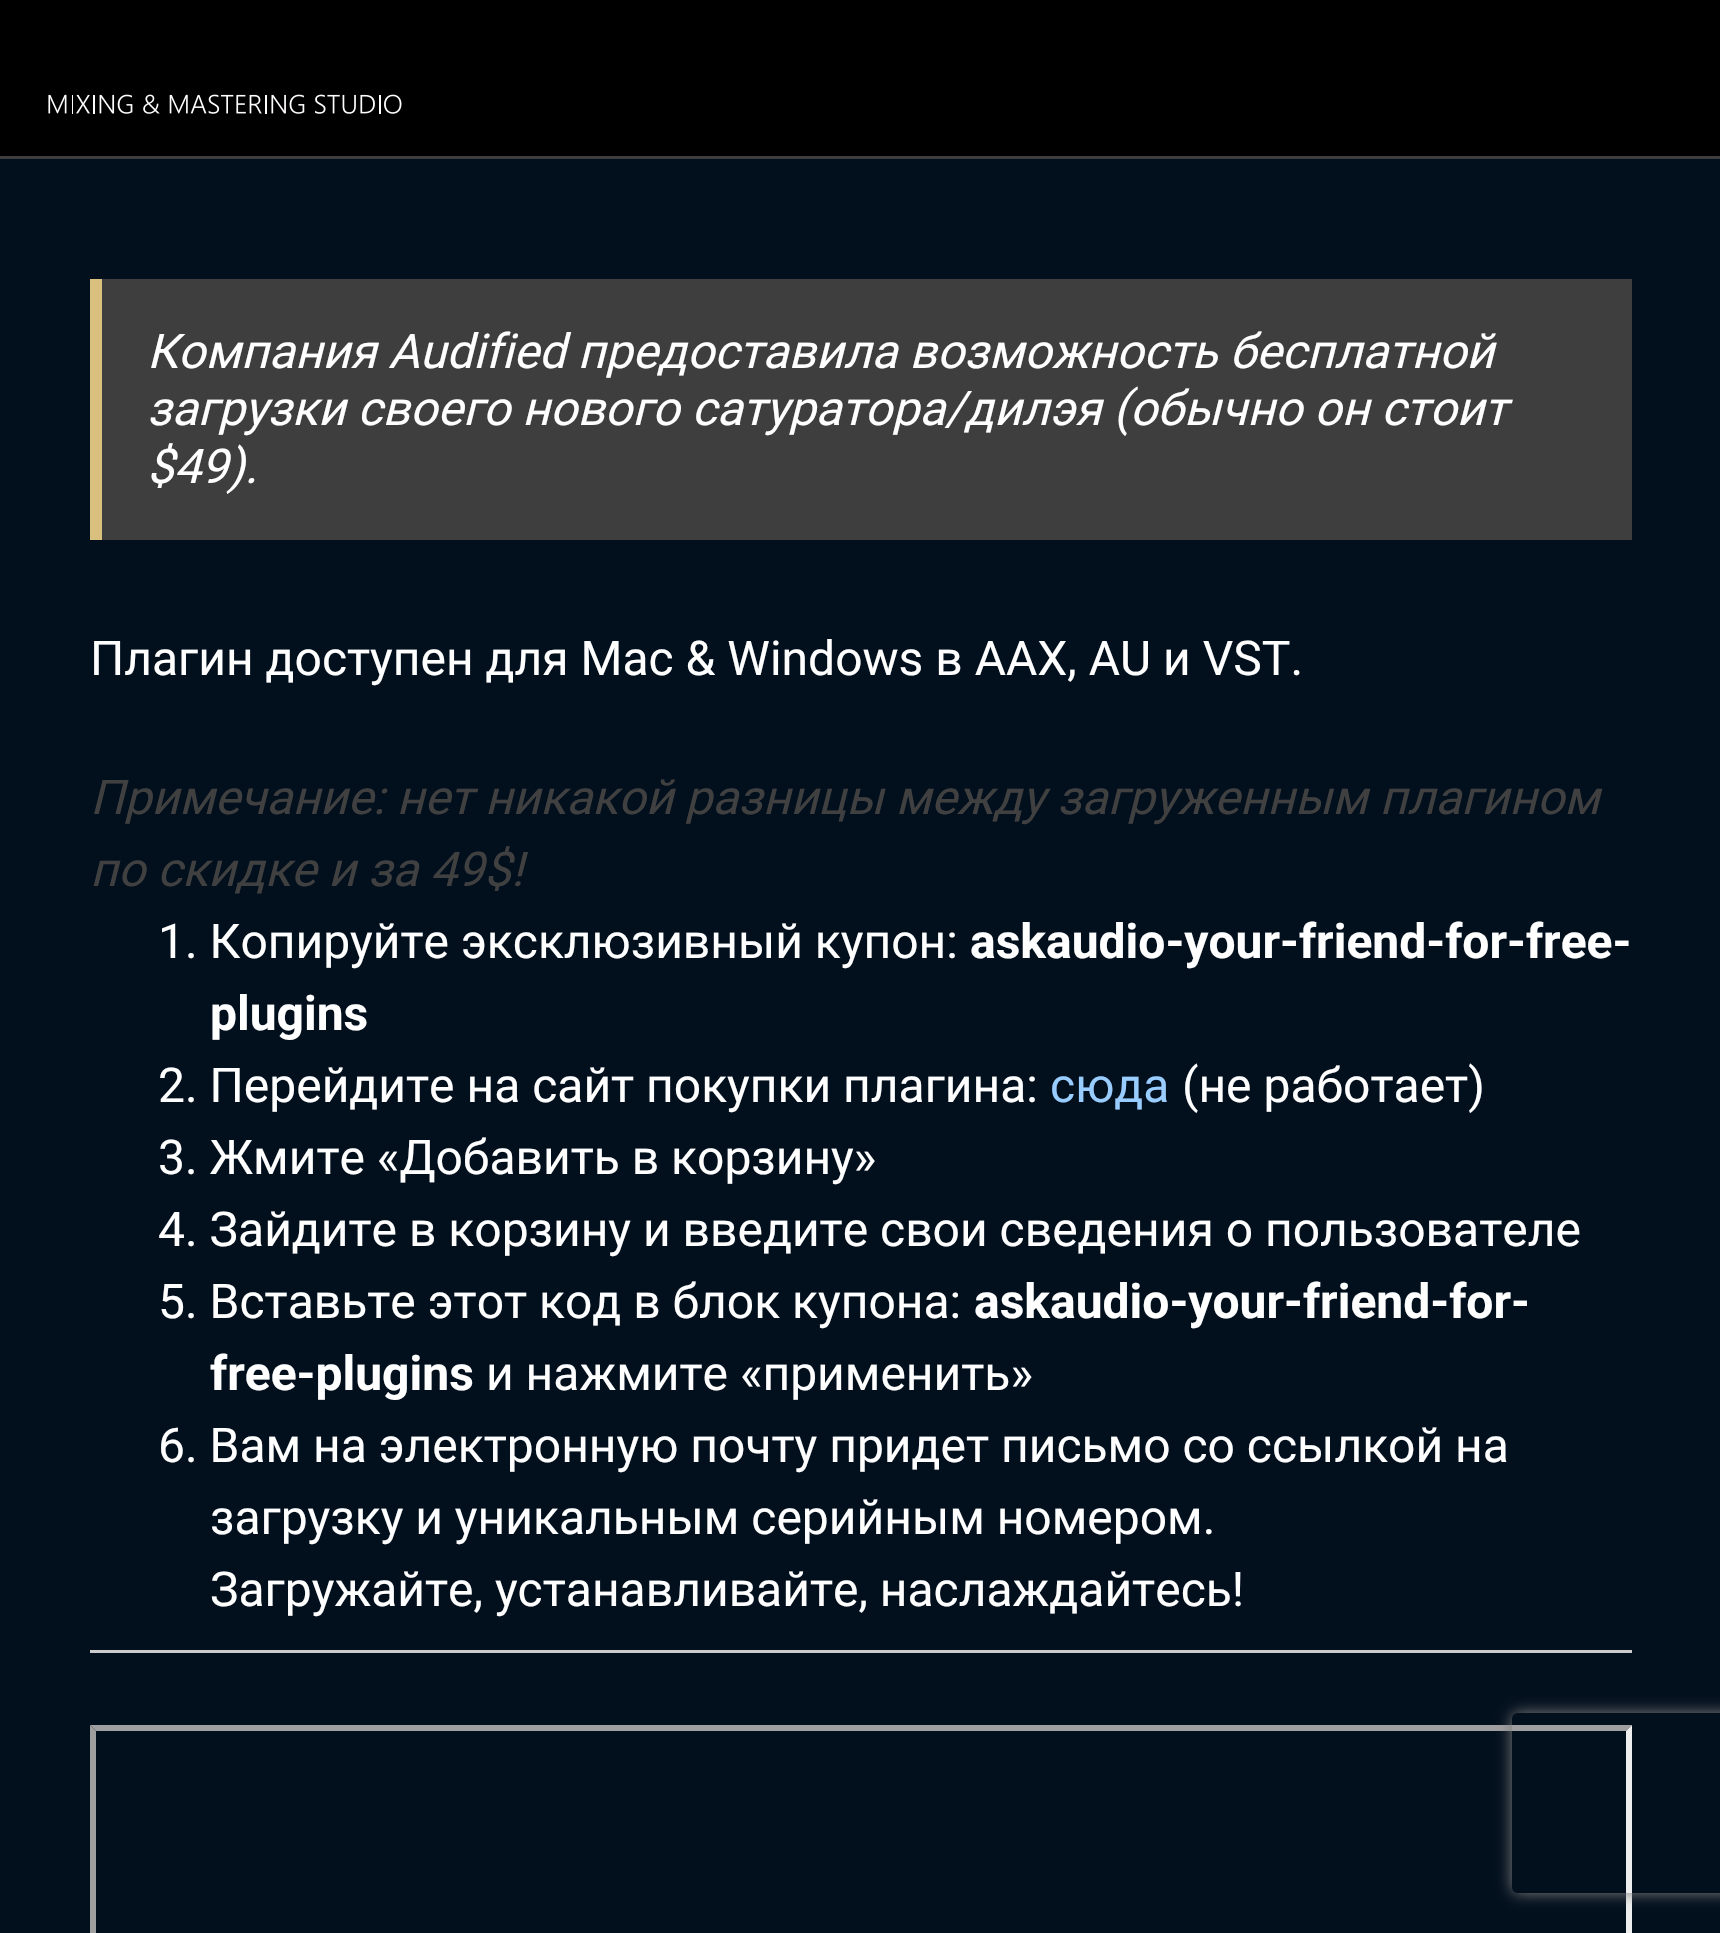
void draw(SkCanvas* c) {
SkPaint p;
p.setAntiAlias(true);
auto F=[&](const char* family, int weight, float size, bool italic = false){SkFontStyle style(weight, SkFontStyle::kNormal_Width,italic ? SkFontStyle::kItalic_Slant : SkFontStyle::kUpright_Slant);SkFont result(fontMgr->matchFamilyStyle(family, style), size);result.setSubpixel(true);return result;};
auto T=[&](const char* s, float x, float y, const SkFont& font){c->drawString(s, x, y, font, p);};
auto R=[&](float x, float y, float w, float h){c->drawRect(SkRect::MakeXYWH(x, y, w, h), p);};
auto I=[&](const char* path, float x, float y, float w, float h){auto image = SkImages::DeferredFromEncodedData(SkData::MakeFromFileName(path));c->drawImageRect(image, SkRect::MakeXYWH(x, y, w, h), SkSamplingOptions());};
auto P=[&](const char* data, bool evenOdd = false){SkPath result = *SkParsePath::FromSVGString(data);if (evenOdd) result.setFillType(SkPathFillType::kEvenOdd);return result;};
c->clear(0xff020f1d);
p.setColor(0xff000000);
R(0,0,1720,156);
p.setColor(0xff3e3e3e);
R(0,156,1720,3);
I("1.png",48,94,354,20);
R(102,279,1530,261);
p.setColor(0xffd9c07e);
R(90,279,12,261);
auto f1 = F("Roboto",400,48,true);
p.setColor(0xffffffff);
T("Компания Audified предоставила возможность бесплатной",147,368,f1);
T("загрузки своего нового сатуратора/дилэя (обычно он стоит",147,425,f1);
T("$49).",147,483,f1);
auto f2 = F("Roboto",400,48);
T("Плагин доступен для Mac & Windows в AAX, AU и VST.",90,675,f2);
p.setColor(0xff404040);
T("Примечание: нет никакой разницы между загруженным плагином",90,814,f1);
T("по скидке и за 49$!",90,886,f1);
p.setColor(0xffffffff);
T("1. Копируйте эксклюзивный купон:",158,958,f2);
auto f3 = F("Roboto",700,48);
T("askaudio-your-friend-for-free-",970,958,f3);
T("plugins",210,1030,f3);
T("2. Перейдите на сайт покупки плагина:",158,1102,f2);
p.setColor(0xff99ccff);
T("сюда",1050,1102,f2);
p.setColor(0xffffffff);
T("(не работает)",1182,1102,f2);
T("3. Жмите «Добавить в корзину»",158,1174,f2);
T("4. Зайдите в корзину и введите свои сведения о пользователе",158,1246,f2);
T("5. Вставьте этот код в блок купона:",158,1318,f2);
T("askaudio-your-friend-for-",974,1318,f3);
T("free-plugins",210,1390,f3);
T("и нажмите «применить»",486,1390,f2);
T("6. Вам на электронную почту придет письмо со ссылкой на",158,1462,f2);
T("загрузку и уникальным серийным номером.",210,1534,f2);
T("Загружайте, устанавливайте, наслаждайтесь!",210,1606,f2);
p.setColor(0xffcccccc);
R(90,1650,1542,3);
p.setColor(0xff9f9f9f);
c->drawPath(P("M90 1725h1542l-6 6h-1530z"),p);
c->drawPath(P("M90 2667v-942l6 6v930z"),p);
p.setColor(0xffeeeeee);
c->drawPath(P("M1632 1725v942l-6-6v-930z"),p);
c->save();
c->clipPath(P("M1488 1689h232v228h-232zm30 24h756c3.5 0 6 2.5 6 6v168c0 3.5-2.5 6-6 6h-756c-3.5 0-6-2.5-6-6v-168c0-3.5 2.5-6 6-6z",true),true);
p.setColor(0xff808080);
p.setMaskFilter(SkMaskFilter::MakeBlur(kNormal_SkBlurStyle, 7.5));
c->drawRoundRect(SkRect::MakeXYWH(1512,1713,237,180),6,6,p);
p.setMaskFilter(nullptr);
c->restore();
}
